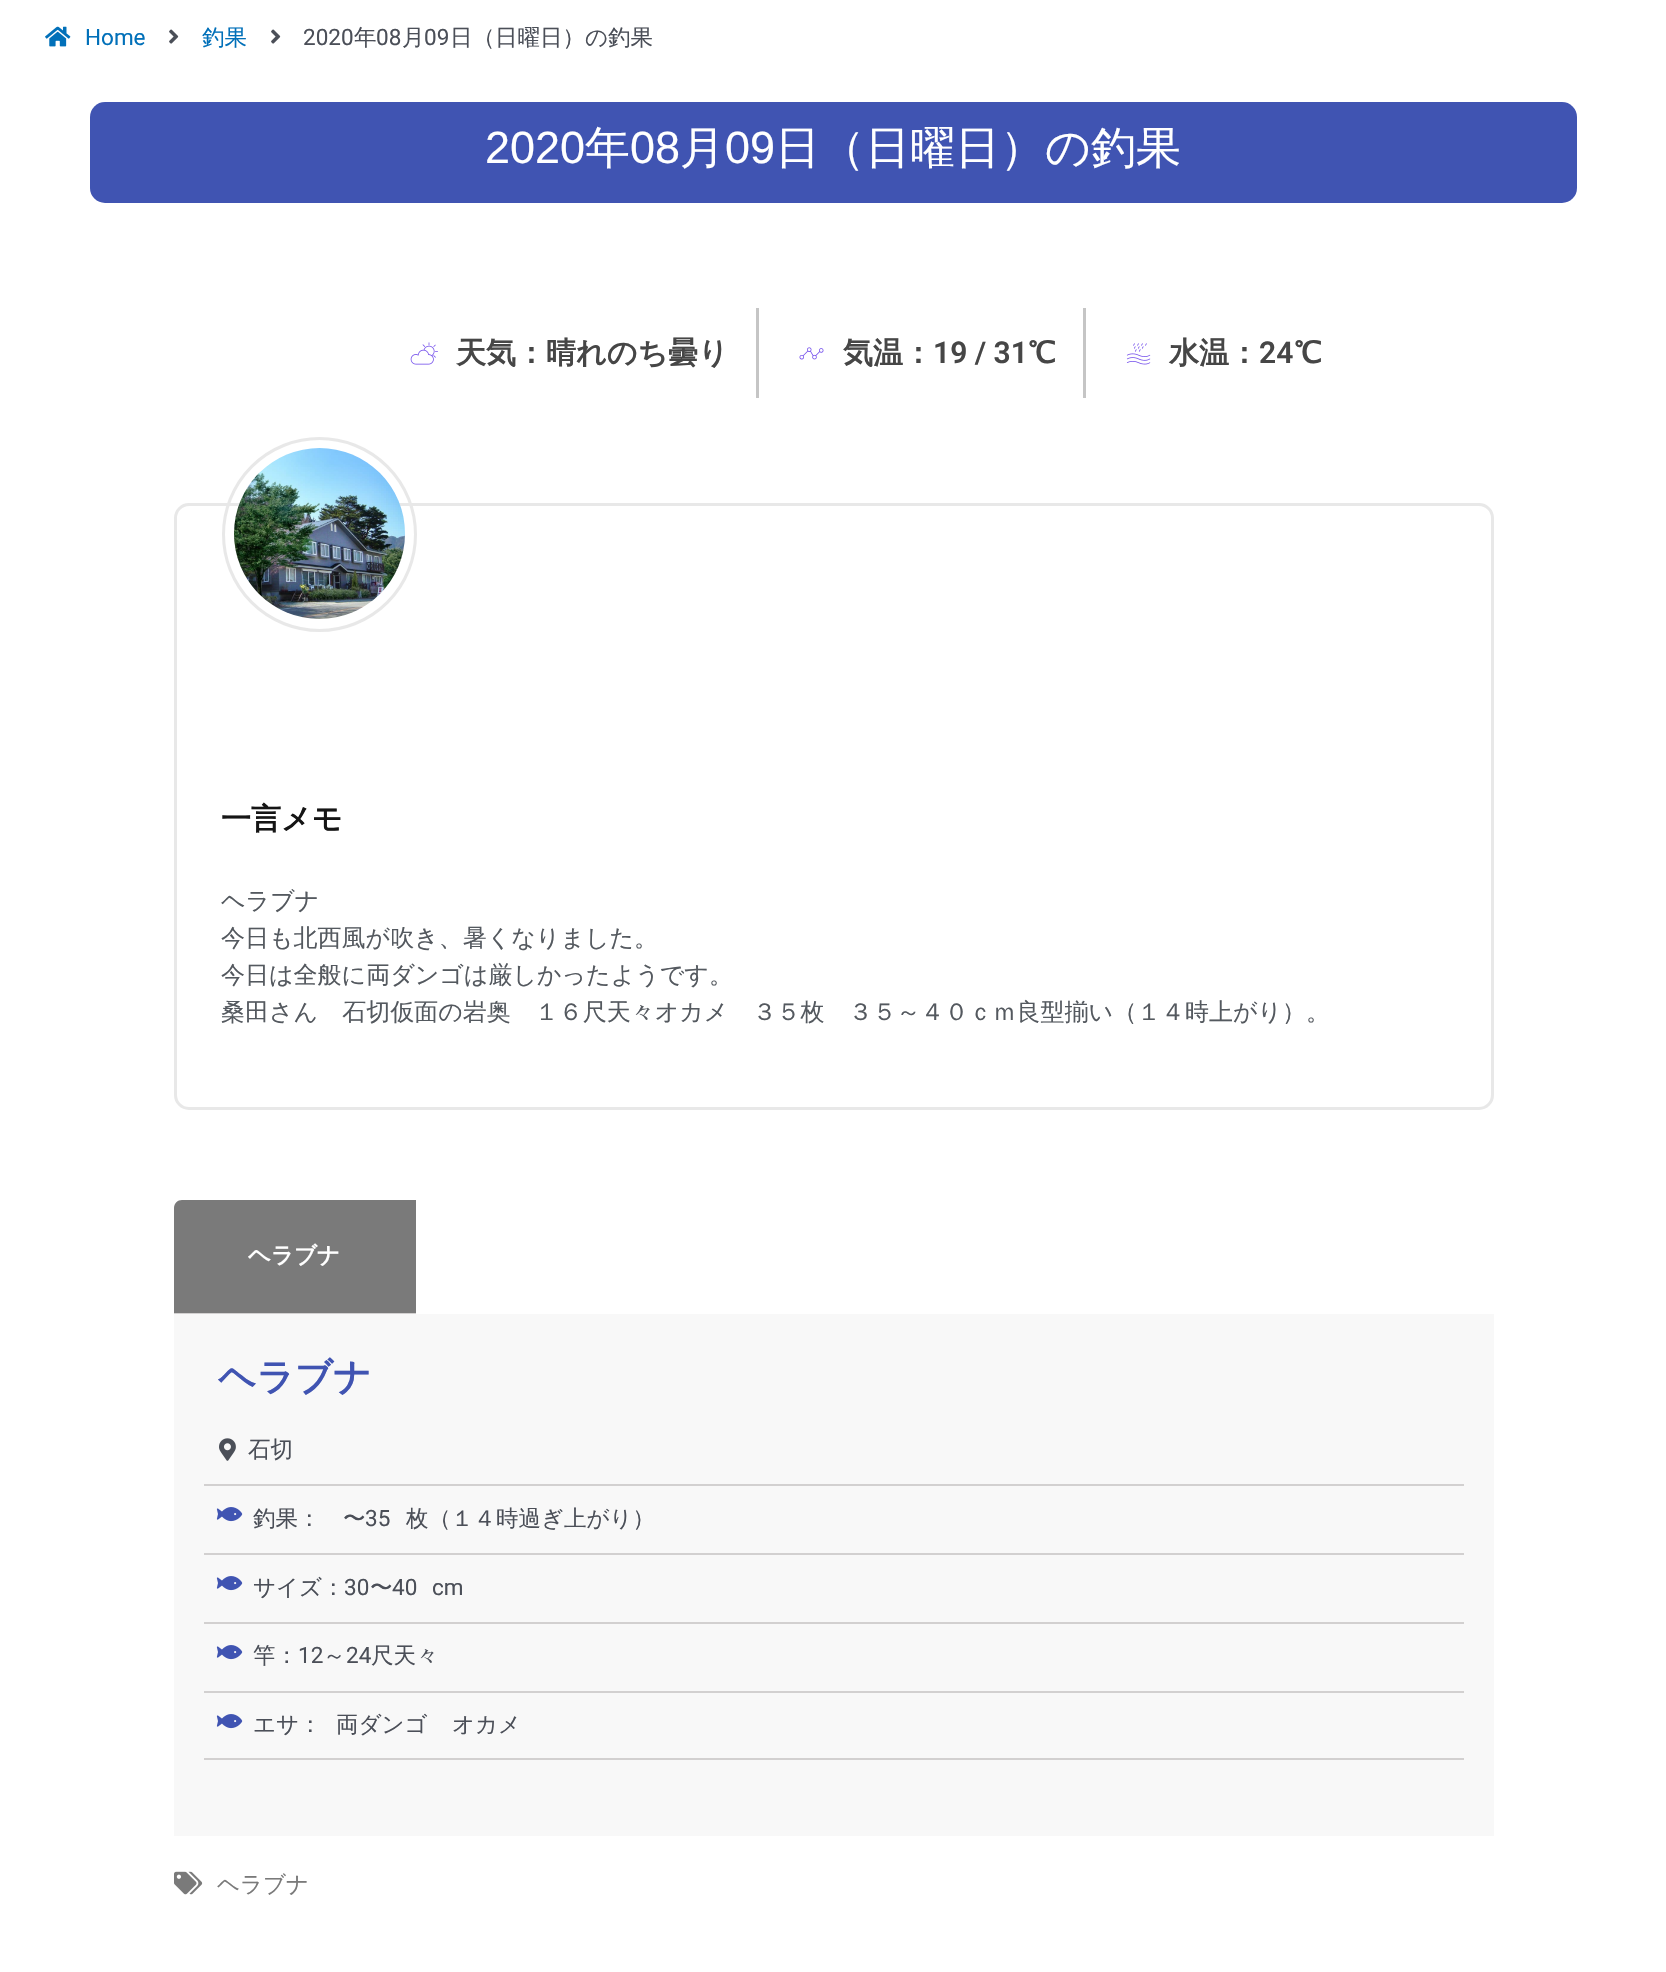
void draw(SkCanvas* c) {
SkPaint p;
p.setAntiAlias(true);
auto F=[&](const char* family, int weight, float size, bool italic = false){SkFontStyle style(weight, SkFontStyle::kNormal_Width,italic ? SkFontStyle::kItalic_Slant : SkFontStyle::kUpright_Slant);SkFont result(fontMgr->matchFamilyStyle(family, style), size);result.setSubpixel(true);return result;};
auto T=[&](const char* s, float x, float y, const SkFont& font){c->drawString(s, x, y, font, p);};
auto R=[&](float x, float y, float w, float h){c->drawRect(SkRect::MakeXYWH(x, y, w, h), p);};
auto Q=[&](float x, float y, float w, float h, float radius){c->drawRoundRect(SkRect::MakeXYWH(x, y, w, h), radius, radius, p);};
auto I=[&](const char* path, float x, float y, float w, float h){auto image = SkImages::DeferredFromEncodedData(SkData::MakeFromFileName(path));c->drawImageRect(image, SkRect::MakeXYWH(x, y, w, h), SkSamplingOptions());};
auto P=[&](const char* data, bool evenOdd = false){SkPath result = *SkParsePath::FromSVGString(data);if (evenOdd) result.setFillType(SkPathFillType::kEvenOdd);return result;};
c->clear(0xffffffff);
I("1.png",45,26,26,21);
auto f1 = F("Roboto",400,22.5);
p.setColor(0xff0170b9);
T("Home",85,45,f1);
I("2.png",169,29,10,15);
auto f2 = F("WenQuanYi Zen Hei",500,22.5);
T("釣果",202,45,f2);
I("2.png",271,29,10,15);
p.setColor(0xff4b4f58);
T("2020",303,45,f1);
T("年",354,45,f2);
T("08",376,45,f1);
T("月",402,45,f2);
T("09",424,45,f1);
T("日（日曜日）の釣果",450,45,f2);
p.setColor(0xff4054b2);
Q(90,102,1487,101,15);
auto f3 = F("Liberation Sans",400,45);
p.setColor(0xffffffff);
T("2020",485,163,f3);
auto f4 = F("WenQuanYi Zen Hei",500,45);
T("年",585,163,f4);
T("08",630,163,f3);
T("月",680,163,f4);
T("09",725,163,f3);
T("日（日曜日）の釣果",775,163,f4);
I("3.png",410,342,28,23);
auto f5 = F("WenQuanYi Zen Hei",700,30);
p.setColor(0xff464646);
T("天気：晴れのち曇り",456,363,f5);
p.setColor(0xffc5c5c5);
R(756,308,3,90);
I("4.png",799,347,25,13);
p.setColor(0xff464646);
T("気温：",843,363,f5);
auto f6 = F("Roboto",600,30);
T("19 / 31",933,363,f6);
T("℃",1028,363,f5);
p.setColor(0xffc5c5c5);
R(1083,308,3,90);
I("5.png",1126,343,25,22);
p.setColor(0xff464646);
T("水温：",1169,363,f5);
T("24",1259,363,f6);
T("℃",1294,363,f5);
p.setStroke(true);
p.setStrokeWidth(3);
p.setColor(0xffe8e8e8);
c->drawRoundRect(SkRect::MakeXYWH(175.5,504.5,1317,604),13.5,13.5,p);
c->drawCircle(319.5,534.5,96,p);
I("6.png",234,448,171,171);
p.setStroke(false);
p.setColor(0xff151515);
T("一言メモ",221,829,f5);
auto f7 = F("WenQuanYi Zen Hei",500,24);
p.setColor(0xff54595f);
T("ヘラブナ",221,909,f7);
T("今日も北西風が吹き、暑くなりました。",221,946,f7);
T("今日は全般に両ダンゴは厳しかったようです。",221,983,f7);
T("桑田さん　石切仮面の岩奥　１６尺天々オカメ　３５枚　３５～４０ｃｍ良型揃い（１４時上がり）。",221,1020,f7);
p.setColor(0xff7a7a7a);
c->drawPath(P("M182 1200h234v113h-242v-105c0-4.5 3.5-8 8-8z"),p);
p.setColor(0xffd2d0d0);
R(174,1313,242,1);
auto f8 = F("WenQuanYi Zen Hei",700,22.5);
p.setColor(0xffffffff);
T("ヘラブナ",248,1263,f8);
p.setColor(0xfff8f8f8);
R(174,1314,1320,522);
auto f9 = F("WenQuanYi Zen Hei",700,37.5);
p.setColor(0xff4054b2);
T("ヘラブナ",218,1390,f9);
p.setColor(0xffd2d0d0);
R(204,1484,1260,2);
I("7.png",219,1438,17,23);
p.setColor(0xff4b4f58);
T("石切",248,1457,f2);
p.setColor(0xffd2d0d0);
R(204,1553,1260,2);
I("8.png",216,1507,27,15);
p.setColor(0xff4b4f58);
T("釣果：",253,1526,f2);
T("〜",343,1526,f2);
T("35",365,1526,f1);
T("枚（１４時過ぎ上がり）",406,1526,f2);
p.setColor(0xffd2d0d0);
R(204,1622,1260,2);
I("8.png",216,1576,27,15);
p.setColor(0xff4b4f58);
T("サイズ：",253,1595,f2);
T("30",344,1595,f1);
T("〜",370,1595,f2);
T("40",392,1595,f1);
T("cm",432,1595,f1);
p.setColor(0xffd2d0d0);
R(204,1691,1260,2);
I("8.png",216,1645,27,15);
p.setColor(0xff4b4f58);
T("竿：",253,1663,f2);
T("12",298,1663,f1);
T("～",323,1663,f2);
T("24",346,1663,f1);
T("尺天々",371,1663,f2);
p.setColor(0xffd2d0d0);
R(204,1758,1260,2);
I("8.png",216,1714,27,15);
p.setColor(0xff4b4f58);
T("エサ：",253,1732,f2);
T("両ダンゴ",336,1732,f2);
T("オカメ",452,1732,f2);
I("9.png",174,1871,29,24);
p.setColor(0xff7a7a7a);
T("ヘラブナ",217,1892,f2);
}
